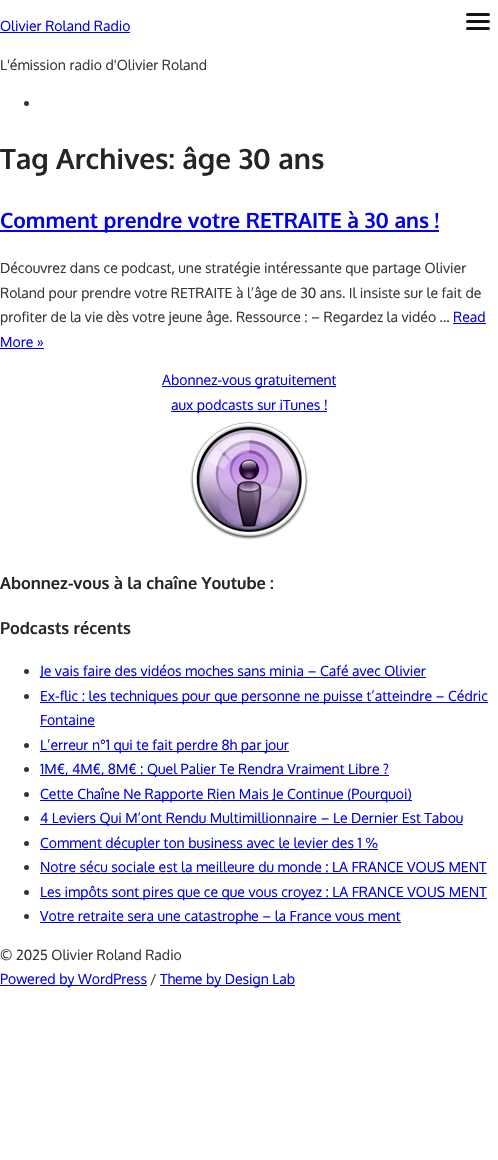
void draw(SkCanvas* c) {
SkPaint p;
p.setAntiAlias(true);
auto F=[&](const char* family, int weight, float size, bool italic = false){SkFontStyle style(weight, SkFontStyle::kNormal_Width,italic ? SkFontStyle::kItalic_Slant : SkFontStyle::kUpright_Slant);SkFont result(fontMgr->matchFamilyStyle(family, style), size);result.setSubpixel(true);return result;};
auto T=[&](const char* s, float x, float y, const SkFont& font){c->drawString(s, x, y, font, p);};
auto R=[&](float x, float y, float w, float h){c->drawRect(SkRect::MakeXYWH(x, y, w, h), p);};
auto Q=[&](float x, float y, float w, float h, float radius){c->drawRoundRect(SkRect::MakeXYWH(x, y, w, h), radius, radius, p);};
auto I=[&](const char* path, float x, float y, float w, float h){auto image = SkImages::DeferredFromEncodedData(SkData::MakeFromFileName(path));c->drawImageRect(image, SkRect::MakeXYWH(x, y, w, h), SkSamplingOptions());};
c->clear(0xffffffff);
auto f1 = F("Oxygen",400,14);
p.setColor(0xff0000ee);
T("Olivier Roland Radio",0,31,f1);
R(0,32,130,1);
p.setColor(0xff353535);
T("L'émission radio d'Olivier Roland",0,70,f1);
c->drawCircle(26.5,103.5,2.5,p);
p.setColor(0xff151515);
Q(466,20,24,3,1.5);
Q(466,13,24,3,1.5);
Q(466,27,24,3,1.5);
auto f2 = F("Oxygen",700,28);
p.setColor(0xff252525);
T("Tag Archives: âge 30 ans",0,169,f2);
p.setColor(0xff0000ee);
R(0,230,439,2);
auto f3 = F("Oxygen",700,21);
T("Comment prendre votre RETRAITE à 30 ans !",0,228,f3);
p.setColor(0xff353535);
T("Découvrez dans ce podcast, une stratégie intéressante que partage Olivier",0,273,f1);
T("Roland pour prendre votre RETRAITE à l’âge de 30 ans. Il insiste sur le fait de",0,298,f1);
T("profiter de la vie dès votre jeune âge. Ressource : – Regardez la vidéo …",0,322,f1);
p.setColor(0xff0000ee);
T("Read",453,322,f1);
R(453,323,33,1);
T("More »",0,347,f1);
R(0,348,44,1);
R(162,386,174,1);
T("Abonnez-vous gratuitement",162,385,f1);
R(171,411,156,1);
T("aux podcasts sur iTunes !",171,410,f1);
I("1.png",190,422,118,118);
auto f4 = F("Oxygen",700,16.4);
p.setColor(0xff252525);
T("Abonnez-vous à la chaîne Youtube :",0,589,f4);
T("Podcasts récents",0,634,f4);
p.setColor(0xff353535);
c->drawCircle(26.5,671.5,2.5,p);
p.setColor(0xff0000ee);
R(40,677,386,1);
T("Je vais faire des vidéos moches sans minia – Café avec Olivier",40,676,f1);
p.setColor(0xff353535);
c->drawCircle(26.5,696.5,2.5,p);
p.setColor(0xff0000ee);
R(40,702,448,1);
T("Ex-flic : les techniques pour que personne ne puisse t’atteindre – Cédric",40,701,f1);
T("Fontaine",40,725,f1);
R(40,726,55,1);
p.setColor(0xff353535);
c->drawCircle(26.5,745.5,2.5,p);
p.setColor(0xff0000ee);
R(40,751,249,1);
T("L’erreur n°1 qui te fait perdre 8h par jour",40,750,f1);
p.setColor(0xff353535);
c->drawCircle(26.5,769.5,2.5,p);
p.setColor(0xff0000ee);
R(40,775,349,1);
T("1M€, 4M€, 8M€ : Quel Palier Te Rendra Vraiment Libre ?",40,774,f1);
p.setColor(0xff353535);
c->drawCircle(26.5,794.5,2.5,p);
p.setColor(0xff0000ee);
R(40,800,372,1);
T("Cette Chaîne Ne Rapporte Rien Mais Je Continue (Pourquoi)",40,799,f1);
p.setColor(0xff353535);
c->drawCircle(26.5,818.5,2.5,p);
p.setColor(0xff0000ee);
R(40,824,423,1);
T("4 Leviers Qui M’ont Rendu Multimillionnaire – Le Dernier Est Tabou",40,823,f1);
p.setColor(0xff353535);
c->drawCircle(26.5,843.5,2.5,p);
p.setColor(0xff0000ee);
R(40,849,338,1);
T("Comment décupler ton business avec le levier des 1 %",40,848,f1);
p.setColor(0xff353535);
c->drawCircle(26.5,867.5,2.5,p);
p.setColor(0xff0000ee);
T("Notre sécu sociale est la meilleure du monde : LA FRANCE VOUS MENT",40,872,f1);
R(40,873,447,1);
p.setColor(0xff353535);
c->drawCircle(26.5,892.5,2.5,p);
p.setColor(0xff0000ee);
R(40,898,447,1);
T("Les impôts sont pires que ce que vous croyez : LA FRANCE VOUS MENT",40,897,f1);
p.setColor(0xff353535);
c->drawCircle(26.5,916.5,2.5,p);
p.setColor(0xff0000ee);
R(40,922,361,1);
T("Votre retraite sera une catastrophe – la France vous ment",40,921,f1);
p.setColor(0xff353535);
T("© 2025 Olivier Roland Radio",0,960,f1);
p.setColor(0xff0000ee);
R(0,985,147,1);
T("Powered by WordPress",0,984,f1);
p.setColor(0xff353535);
T("/",150,984,f1);
p.setColor(0xff0000ee);
R(160,985,135,1);
T("Theme by Design Lab",160,984,f1);
}
